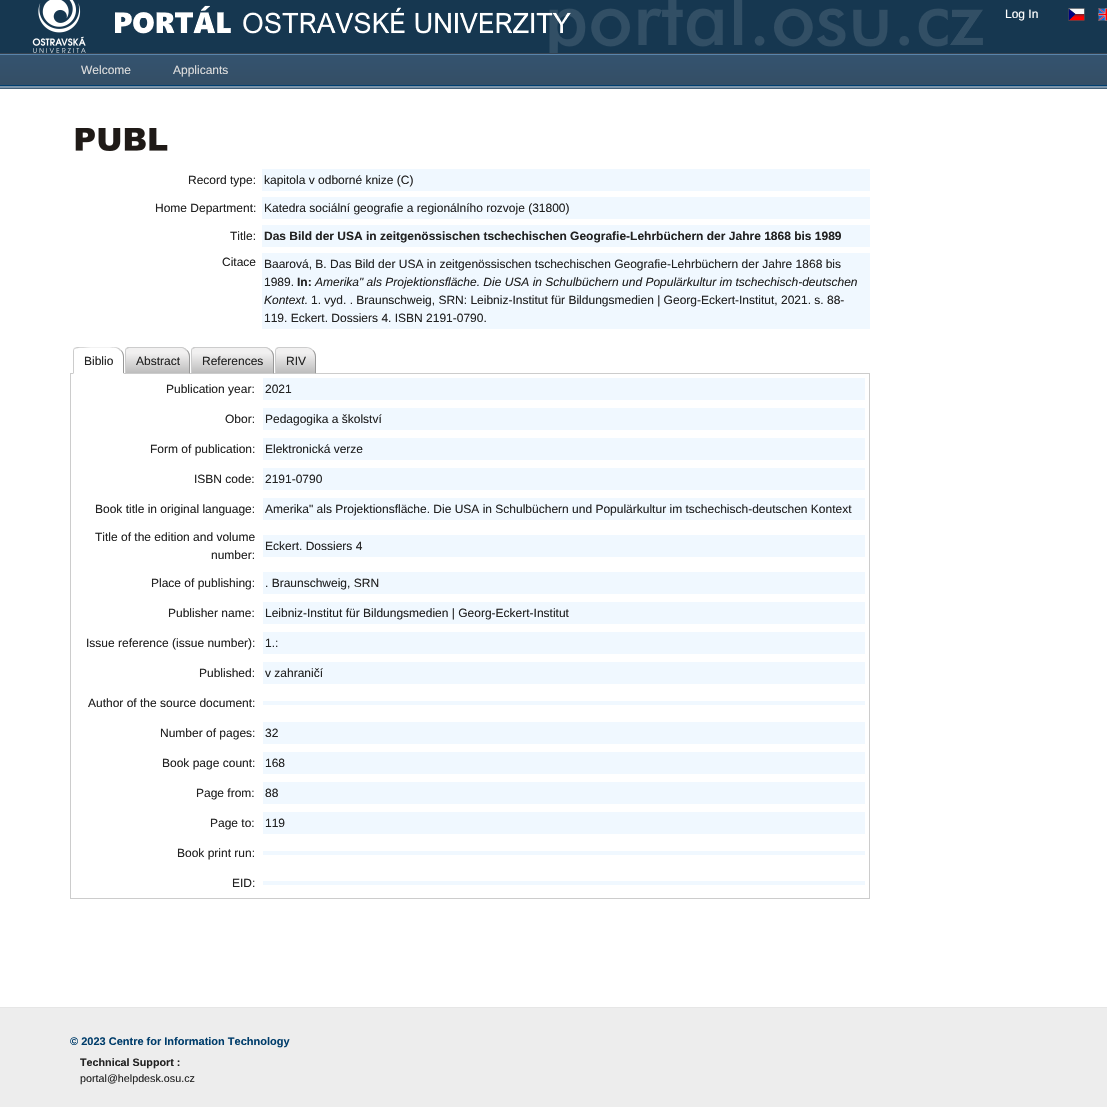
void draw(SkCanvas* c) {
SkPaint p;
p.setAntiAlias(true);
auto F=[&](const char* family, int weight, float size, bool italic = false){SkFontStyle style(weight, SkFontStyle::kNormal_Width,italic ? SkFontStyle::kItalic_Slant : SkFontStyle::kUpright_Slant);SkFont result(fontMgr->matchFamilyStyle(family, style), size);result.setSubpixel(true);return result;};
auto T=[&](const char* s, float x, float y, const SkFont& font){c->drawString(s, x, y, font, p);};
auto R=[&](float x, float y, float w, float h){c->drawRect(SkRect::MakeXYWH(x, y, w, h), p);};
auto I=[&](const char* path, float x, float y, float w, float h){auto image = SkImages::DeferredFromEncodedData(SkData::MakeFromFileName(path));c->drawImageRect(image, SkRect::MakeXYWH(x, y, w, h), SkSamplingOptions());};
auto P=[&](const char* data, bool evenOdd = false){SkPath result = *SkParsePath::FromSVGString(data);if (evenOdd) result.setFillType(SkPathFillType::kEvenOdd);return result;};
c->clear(0xffededed);
p.setColor(0xff163750);
R(0,0,1107,53);
I("1.png",32,0,951,53);
p.setColor(0xff374452);
R(0,53,1107,1);
auto f1 = F("Liberation Sans",400,12);
p.setColor(0xffffffff);
T("Log In",1005,18,f1);
I("2.png",1068,8,17,13);
I("3.png",1098,8,9,13);
p.setColor(0xff7b95ab);
R(0,86,1107,2);
p.setColor(0xff446179);
R(0,88,1107,1);
{
const SkColor colors[] = {0xff34536f,0xff344e65};
const float stops[] = {0,1};
const SkPoint ends[] = {{600,55}, {600,85}};
p.setShader(SkGradientShader::MakeLinear(ends, colors, stops, 2, SkTileMode::kClamp));
p.setAlpha(255);
}
R(0,55,1107,30);
p.setShader(nullptr);
p.setColor(0xff5984ab);
R(0,54,1107,1);
p.setColor(0xff003f70);
R(0,85,1107,1);
p.setColor(0xffdddddd);
T("Welcome",81,74,f1);
T("Applicants",173,74,f1);
p.setColor(0xffffffff);
R(0,89,1107,918);
I("4.png",75,128,93,23);
p.setColor(0xff222222);
T("Record type:",188,184,f1);
p.setColor(0xfff0f8ff);
R(262,169,608,22);
p.setColor(0xff222222);
T("kapitola v odborné knize (C)",264,184,f1);
T("Home Department:",155,212,f1);
p.setColor(0xfff0f8ff);
R(262,197,608,22);
p.setColor(0xff222222);
T("Katedra sociální geografie a regionálního rozvoje (31800)",264,212,f1);
T("Title:",230,240,f1);
p.setColor(0xfff0f8ff);
R(262,225,608,22);
auto f2 = F("Liberation Sans",700,12);
p.setColor(0xff222222);
T("Das Bild der USA in zeitgenössischen tschechischen Geografie-Lehrbüchern der Jahre 1868 bis 1989",264,240,f2);
T("Citace",222,266,f1);
p.setColor(0xfff0f8ff);
R(262,253,608,76);
p.setColor(0xff222222);
T("Baarová, B. Das Bild der USA in zeitgenössischen tschechischen Geografie-Lehrbüchern der Jahre 1868 bis",264,268,f1);
T("1989.",264,286,f1);
T("In:",297,286,f2);
auto f3 = F("Liberation Sans",400,12,true);
T("Amerika\" als Projektionsfläche. Die USA in Schulbüchern und Populärkultur im tschechisch-deutschen",315,286,f3);
T("Kontext.",264,304,f3);
T("1. vyd. . Braunschweig, SRN: Leibniz-Institut für Bildungsmedien | Georg-Eckert-Institut, 2021. s. 88-",311,304,f1);
T("119. Eckert. Dossiers 4. ISBN 2191-0790.",264,322,f1);
p.setColor(0xffcccccc);
R(70,373,800,1);
p.setColor(0xffffffff);
c->drawPath(P("M77 347h37c5.5 0 10 4.5 10 10v17h-51v-23c0-2 2-4 4-4z"),p);
p.setColor(0xffcccccc);
c->drawPath(P("M77 347l-3 1l1 1c1-2 37-2 41-1c2 1 3 1 4 3l1-1c-1-2-4-3-7-3z"),p);
p.setColor(0xff989898);
c->drawPath(P("M124 374v-17c0-3-1-5.5-3-7l-.5 .5c1.5 1.5 2.5 4 2.5 6.5v16z"),p);
p.setColor(0xffffffff);
c->drawPath(P("M124 374l-1-1h-49l-1 1z"),p);
p.setColor(0xffcccccc);
c->drawPath(P("M73 374l1-1v-22c0-1 0-2 1-2l-1-1c-.5 1-1 2-1 3z"),p);
p.setColor(0xff222222);
T("Biblio",84,365,f1);
p.setColor(0xffbdbdbd);
c->drawPath(P("M129 347h51c5.5 0 10 4.5 10 10v17h-65v-23c0-2 2-4 4-4z"),p);
c->save();
c->clipPath(P("M129 347h51c5.5 0 10 4.5 10 10v17h-65v-23c0-2 2-4 4-4z"),true);
{
const SkColor colors[] = {0xffbdbdbd,0xfff1f0f0};
const float stops[] = {0,.8};
const SkPoint ends[] = {{158,373}, {158,348}};
p.setShader(SkGradientShader::MakeLinear(ends, colors, stops, 2, SkTileMode::kClamp));
p.setAlpha(255);
}
R(125,348,65,25);
c->restore();
p.setShader(nullptr);
p.setColor(0xffcccccc);
c->drawPath(P("M129 347l-3 1l1 1l2-1h53c2 1 3 1 4 3l1-1c-1-2-4-3-7-3z"),p);
p.setColor(0xff989898);
c->drawPath(P("M190 374v-17c0-3-1-5.5-3-7l-.5 .5c1.5 1.5 2.5 4 2.5 6.5v16z"),p);
p.setColor(0xffcccccc);
c->drawPath(P("M190 374l-1-1h-63l-1 1z"),p);
c->drawPath(P("M125 374l1-1v-22c0-1 0-2 1-2l-1-1c-.5 1-1 2-1 3z"),p);
p.setColor(0xff222222);
T("Abstract",136,365,f1);
p.setColor(0xffbdbdbd);
c->drawPath(P("M195 347h69c5.5 0 10 4.5 10 10v17h-83v-23c0-2 2-4 4-4z"),p);
c->save();
c->clipPath(P("M195 347h69c5.5 0 10 4.5 10 10v17h-83v-23c0-2 2-4 4-4z"),true);
{
const SkColor colors[] = {0xffbdbdbd,0xfff1f0f0};
const float stops[] = {0,.8};
const SkPoint ends[] = {{233,373}, {233,348}};
p.setShader(SkGradientShader::MakeLinear(ends, colors, stops, 2, SkTileMode::kClamp));
p.setAlpha(255);
}
R(191,348,83,25);
c->restore();
p.setShader(nullptr);
p.setColor(0xffcccccc);
c->drawPath(P("M195 347l-3 1l1 1l2-1h71c2 1 3 1 4 3l1-1c-1-2-4-3-7-3z"),p);
p.setColor(0xff989898);
c->drawPath(P("M274 374v-17c0-3-1-5.5-3-7l-.5 .5c1.5 1.5 2.5 4 2.5 6.5v16z"),p);
p.setColor(0xffcccccc);
c->drawPath(P("M274 374l-1-1h-81l-1 1z"),p);
c->drawPath(P("M191 374l1-1v-22c0-1 0-2 1-2l-1-1c-.5 1-1 2-1 3z"),p);
p.setColor(0xff222222);
T("References",202,365,f1);
c->save();
c->clipPath(P("M279 347h27c5.5 0 10 4.5 10 10v17h-41v-23c0-2 2-4 4-4z"),true);
{
const SkColor colors[] = {0xffbdbdbd,0xfff1f0f0};
const float stops[] = {0,.8};
const SkPoint ends[] = {{296,373}, {296,348}};
p.setShader(SkGradientShader::MakeLinear(ends, colors, stops, 2, SkTileMode::kClamp));
p.setAlpha(255);
}
R(275,348,41,25);
c->restore();
p.setShader(nullptr);
p.setColor(0xffcccccc);
c->drawPath(P("M279 347c-1 0-2 .5-3 1l1 1l1.5-1h29.5c1.5 .5 3 1.5 4.5 2.5l.5-.5c-1.5-2-4-3-7-3z"),p);
p.setColor(0xff989898);
c->drawPath(P("M316 374v-17c0-3-1-5.5-3-7l-.5 .5c1.5 1.5 2.5 4 2.5 6.5v16z"),p);
p.setColor(0xffcccccc);
c->drawPath(P("M316 374l-1-1h-39l-1 1z"),p);
c->drawPath(P("M275 374l1-1v-22c0-1 0-2 1-2l-1-1c-.5 1-1 2-1 3z"),p);
p.setColor(0xff222222);
T("RIV",286,365,f1);
p.setColor(0xffcccccc);
R(869,374,1,525);
R(70,898,800,1);
R(70,374,1,525);
p.setColor(0xff222222);
T("Publication year:",166,393,f1);
p.setColor(0xfff0f8ff);
R(263,378,602,22);
p.setColor(0xff222222);
T("2021",265,393,f1);
T("Obor:",225,423,f1);
p.setColor(0xfff0f8ff);
R(263,408,602,22);
p.setColor(0xff222222);
T("Pedagogika a školství",265,423,f1);
T("Form of publication:",150,453,f1);
p.setColor(0xfff0f8ff);
R(263,438,602,22);
p.setColor(0xff222222);
T("Elektronická verze",265,453,f1);
T("ISBN code:",194,483,f1);
p.setColor(0xfff0f8ff);
R(263,468,602,22);
p.setColor(0xff222222);
T("2191-0790",265,483,f1);
T("Book title in original language:",95,513,f1);
p.setColor(0xfff0f8ff);
R(263,498,602,22);
p.setColor(0xff222222);
T("Amerika\" als Projektionsfläche. Die USA in Schulbüchern und Populärkultur im tschechisch-deutschen Kontext",265,513,f1);
T("Title of the edition and volume",95,541,f1);
T("number:",211,559,f1);
p.setColor(0xfff0f8ff);
R(263,535,602,22);
p.setColor(0xff222222);
T("Eckert. Dossiers 4",265,550,f1);
T("Place of publishing:",151,587,f1);
p.setColor(0xfff0f8ff);
R(263,572,602,22);
p.setColor(0xff222222);
T(". Braunschweig, SRN",265,587,f1);
T("Publisher name:",168,617,f1);
p.setColor(0xfff0f8ff);
R(263,602,602,22);
p.setColor(0xff222222);
T("Leibniz-Institut für Bildungsmedien | Georg-Eckert-Institut",265,617,f1);
T("Issue reference (issue number):",86,647,f1);
p.setColor(0xfff0f8ff);
R(263,632,602,22);
p.setColor(0xff222222);
T("1.:",265,647,f1);
T("Published:",199,677,f1);
p.setColor(0xfff0f8ff);
R(263,662,602,22);
p.setColor(0xff222222);
T("v zahraničí",265,677,f1);
T("Author of the source document:",88,707,f1);
p.setColor(0xfff0f8ff);
R(263,701,602,4);
p.setColor(0xff222222);
T("Number of pages:",160,737,f1);
p.setColor(0xfff0f8ff);
R(263,722,602,22);
p.setColor(0xff222222);
T("32",265,737,f1);
T("Book page count:",162,767,f1);
p.setColor(0xfff0f8ff);
R(263,752,602,22);
p.setColor(0xff222222);
T("168",265,767,f1);
T("Page from:",196,797,f1);
p.setColor(0xfff0f8ff);
R(263,782,602,22);
p.setColor(0xff222222);
T("88",265,797,f1);
T("Page to:",210,827,f1);
p.setColor(0xfff0f8ff);
R(263,812,602,22);
p.setColor(0xff222222);
T("119",265,827,f1);
T("Book print run:",177,857,f1);
p.setColor(0xfff0f8ff);
R(263,851,602,4);
p.setColor(0xff222222);
T("EID:",232,887,f1);
p.setColor(0xfff0f8ff);
R(263,881,602,4);
p.setColor(0xffe6e6e6);
R(0,1007,1107,1);
auto f4 = F("Liberation Sans",700,11);
p.setColor(0xff003d6b);
T("© 2023 Centre for Information Technology",70,1045,f4);
auto f5 = F("Liberation Sans",700,10.75);
p.setColor(0xff222222);
T("Technical Support :",80,1066,f5);
auto f6 = F("Liberation Sans",400,10.75);
T("portal@helpdesk.osu.cz",80,1082,f6);
}
